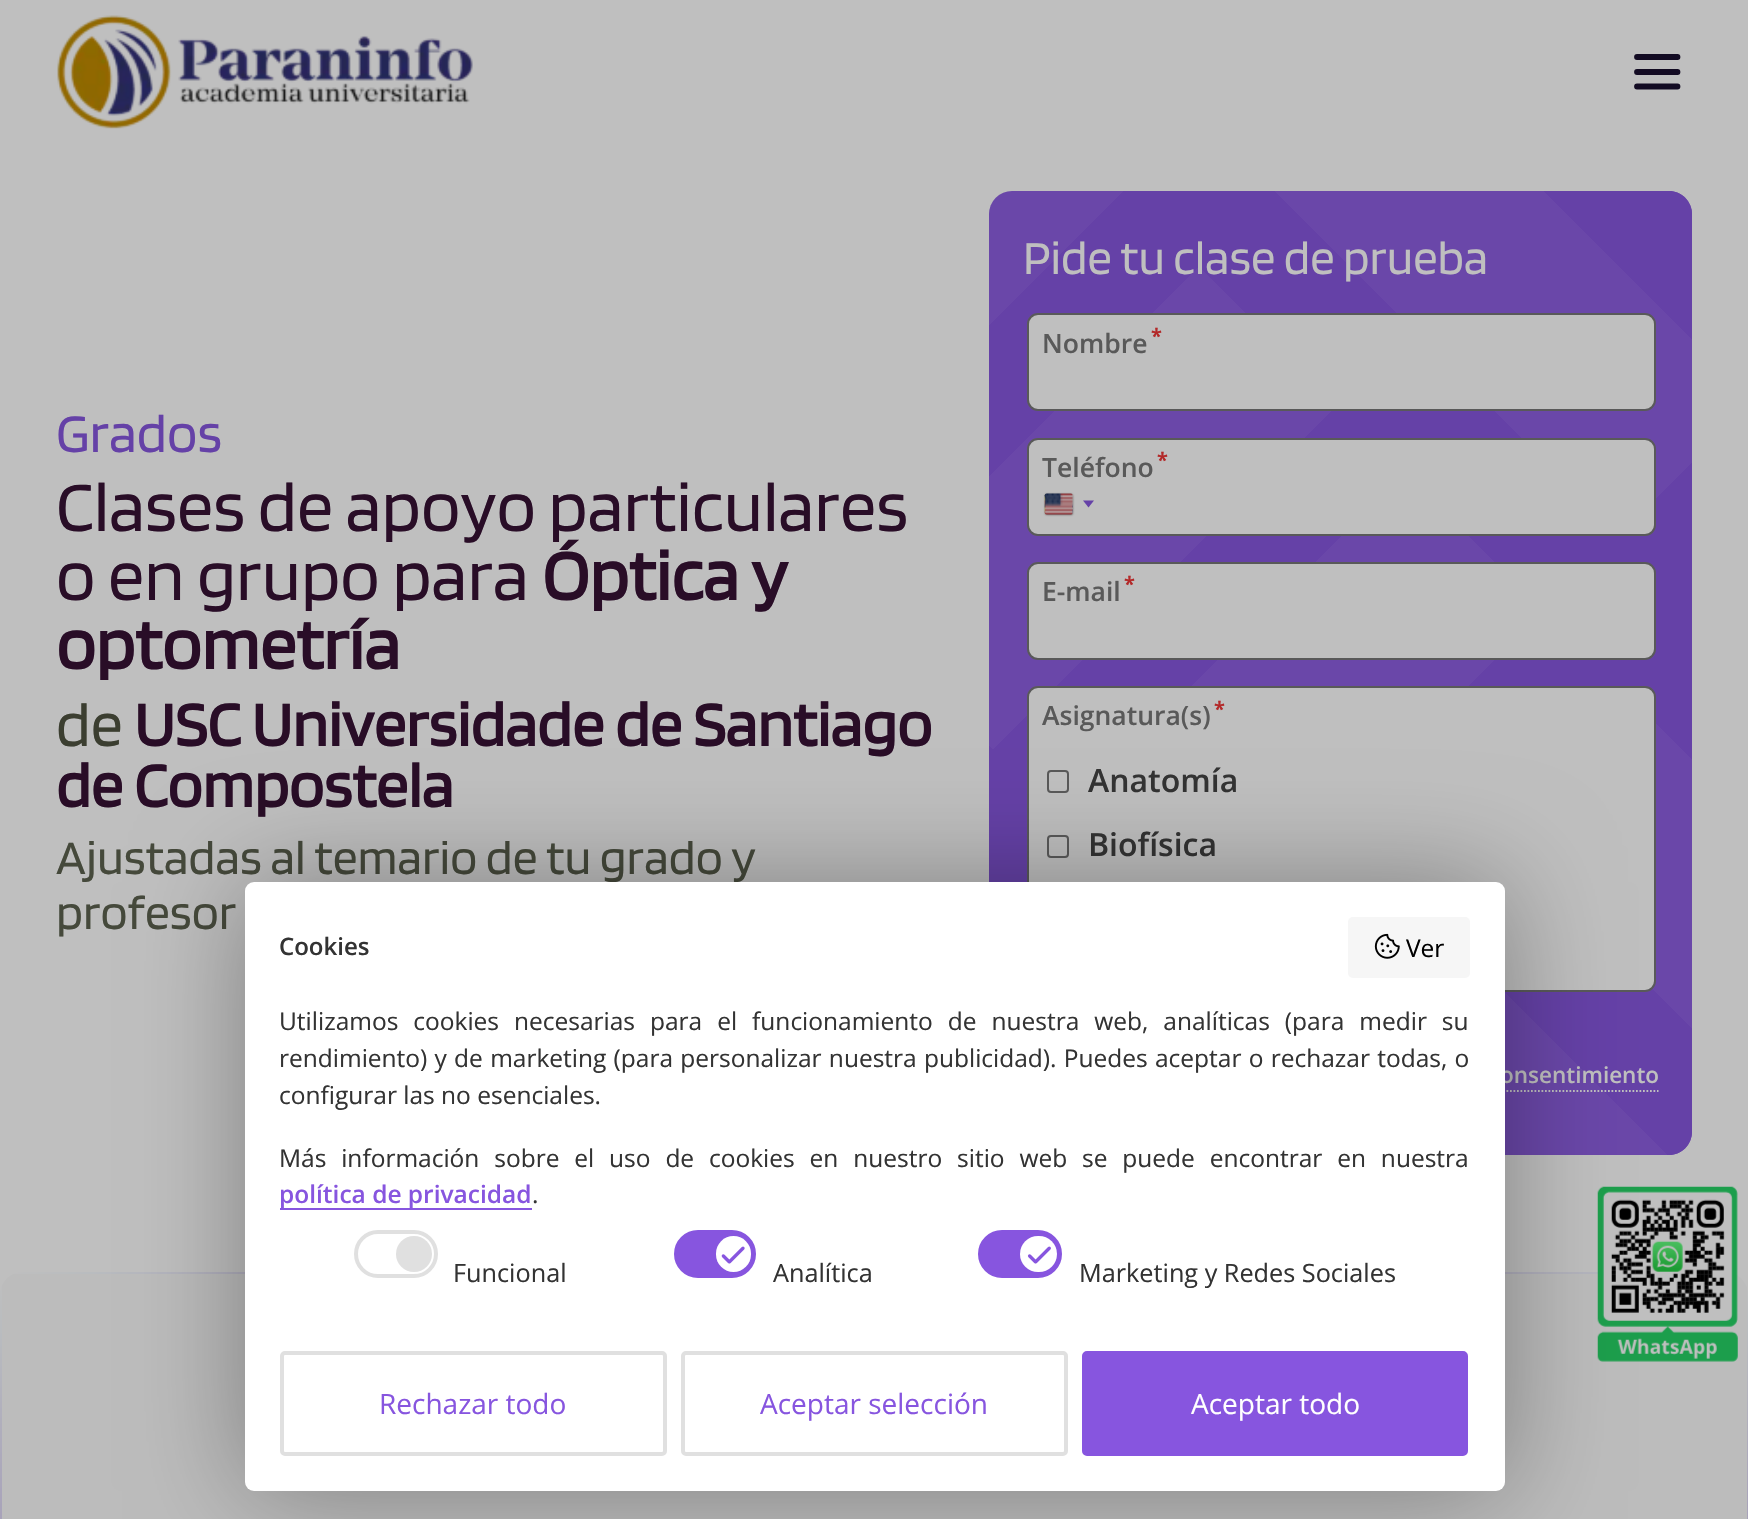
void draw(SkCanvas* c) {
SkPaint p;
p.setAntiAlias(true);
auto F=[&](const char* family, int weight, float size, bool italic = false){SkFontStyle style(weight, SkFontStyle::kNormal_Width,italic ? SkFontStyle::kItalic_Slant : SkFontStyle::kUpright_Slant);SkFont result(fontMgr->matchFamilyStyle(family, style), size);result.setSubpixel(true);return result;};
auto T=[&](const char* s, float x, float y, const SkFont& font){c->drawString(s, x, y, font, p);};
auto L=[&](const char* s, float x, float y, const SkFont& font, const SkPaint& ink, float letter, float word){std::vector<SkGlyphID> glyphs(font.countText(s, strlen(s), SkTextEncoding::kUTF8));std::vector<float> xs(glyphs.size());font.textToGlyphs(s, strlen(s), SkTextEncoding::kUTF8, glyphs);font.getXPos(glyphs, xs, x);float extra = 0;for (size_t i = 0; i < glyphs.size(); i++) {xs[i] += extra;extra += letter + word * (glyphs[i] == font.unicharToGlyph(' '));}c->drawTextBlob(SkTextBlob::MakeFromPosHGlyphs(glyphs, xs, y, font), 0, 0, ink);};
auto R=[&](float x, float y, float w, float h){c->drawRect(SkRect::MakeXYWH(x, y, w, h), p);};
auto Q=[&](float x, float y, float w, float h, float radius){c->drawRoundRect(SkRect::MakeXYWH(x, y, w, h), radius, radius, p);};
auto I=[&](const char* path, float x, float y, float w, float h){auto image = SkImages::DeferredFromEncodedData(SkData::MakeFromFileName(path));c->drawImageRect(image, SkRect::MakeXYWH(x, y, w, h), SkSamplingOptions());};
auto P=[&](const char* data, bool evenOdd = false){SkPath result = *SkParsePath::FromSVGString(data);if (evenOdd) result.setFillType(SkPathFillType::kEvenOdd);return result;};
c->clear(0xffbfbfbf);
I("1.png",57,15,416,114);
p.setStroke(true);
p.setStrokeWidth(5.8);
p.setStrokeCap(SkPaint::kRound_Cap);
p.setColor(0xff130b23);
c->drawPath(P("M1637 57h40.5m-40.5 29.5h40.5m-40.5-14.5h40.5"),p);
auto f1 = F("Blinker",400,56);
p.setStroke(false);
p.setColor(0xff6541a7);
T("Grados",56,452,f1);
auto f2 = F("Blinker",400,72.75);
p.setColor(0xff290d27);
T("Clases de apoyo particulares",56,531,f2);
T("o en grupo para",56,600,f2);
auto f3 = F("Blinker",700,72.75);
T("Óptica y",542,600,f3);
T("optometría",56,669,f3);
auto f4 = F("Blinker",400,64.4);
p.setColor(0xff3b3e30);
T("de",56,746,f4);
auto f5 = F("Blinker",700,64.4);
p.setColor(0xff290d27);
T("USC Universidade de Santiago",134,746,f5);
T("de Compostela",56,807,f5);
auto f6 = F("Blinker",400,49.8);
p.setColor(0xff45493b);
T("Ajustadas al temario de tu grado y",56,874,f6);
T("profesor",56,929,f6);
p.setColor(0xff6a47a9);
Q(989,191,703,964,23);
{
const SkColor colors[] = {0x006541a7,0xff6541a7,0xff6541a7,0x006541a7,0x006541a7,0xff6541a7,0xff6541a7,0x006541a7,0x006541a7,0xff6541a7,0xff6541a7,0x006541a7};
const float stops[] = {.08,.08,.17,.17,.58,.58,.67,.67,.83,.83,.92,.92};
const SkPoint ends[] = {{989,1031}, {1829,191}};
p.setShader(SkGradientShader::MakeLinear(ends, colors, stops, 12, SkTileMode::kClamp));
p.setAlpha(255);
}
c->drawPath(P("M1012 191h657c12.5 0 23 10.5 23 23v817h-703v-817c0-12.5 10.5-23 23-23z"),p);
{
const SkColor colors[] = {0x006541a7,0xff6541a7,0xff6541a7,0x006541a7,0x006541a7,0xff6541a7,0xff6541a7,0x006541a7,0x006541a7,0xff6541a7,0xff6541a7,0x006541a7};
const float stops[] = {.08,.08,.17,.17,.58,.58,.67,.67,.83,.83,.92,.92};
const SkPoint ends[] = {{989,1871}, {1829,1031}};
p.setShader(SkGradientShader::MakeLinear(ends, colors, stops, 12, SkTileMode::kClamp));
p.setAlpha(255);
}
c->drawPath(P("M989 1031h703v101c0 12.5-10.5 23-23 23h-657c-12.5 0-23-10.5-23-23z"),p);
{
const SkColor colors[] = {0x006541a7,0xff6541a7,0xff6541a7,0x006541a7,0x006541a7,0xff6541a7,0xff6541a7,0x006541a7};
const float stops[] = {.08,.08,.17,.17,.58,.58,.67,.67};
const SkPoint ends[] = {{989,191}, {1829,1031}};
p.setShader(SkGradientShader::MakeLinear(ends, colors, stops, 8, SkTileMode::kClamp));
p.setAlpha(255);
}
R(989,191,703,495);
{
const SkColor colors[] = {0x006541a7,0xff6541a7,0xff6541a7,0x006541a7,0x00000000};
const float stops[] = {.08,.08,.17,.17,.58};
const SkPoint ends[] = {{1409,1031}, {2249,191}};
p.setShader(SkGradientShader::MakeLinear(ends, colors, stops, 5, SkTileMode::kClamp));
p.setAlpha(255);
}
R(1505,989,187,42);
{
const SkColor colors[] = {0x006541a7,0xff6541a7,0xff6541a7,0x006541a7};
const float stops[] = {.21,.21,.29,.29};
const SkPoint ends[] = {{989,401}, {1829,1241}};
p.setShader(SkGradientShader::MakeLinear(ends, colors, stops, 4, SkTileMode::kClamp));
p.setAlpha(255);
}
R(993,411,412,406);
auto f7 = F("Blinker",400,49);
p.setShader(nullptr);
p.setColor(0xffbfbfbf);
T("Pide tu clase de prueba",1023,274,f7);
c->drawRoundRect(SkRect::MakeXYWH(1028,314,627,96),10,10,p);
p.setStroke(true);
p.setStrokeWidth(2);
p.setStrokeCap(SkPaint::kButt_Cap);
p.setColor(0xff595959);
c->drawRoundRect(SkRect::MakeXYWH(1028,314,627,96),10,10,p);
auto f8 = F("Open Sans",600,26.5);
p.setStroke(false);
T("Nombre",1042,353,f8);
auto f9 = F("Open Sans",700,20);
p.setColor(0xffb32929);
T("*",1151,343,f9);
p.setColor(0xffbfbfbf);
c->drawRoundRect(SkRect::MakeXYWH(1028,439,627,96),10,10,p);
p.setStroke(true);
p.setColor(0xff595959);
c->drawRoundRect(SkRect::MakeXYWH(1028,439,627,96),10,10,p);
p.setStroke(false);
T("Teléfono",1042,477,f8);
p.setColor(0xffb32929);
T("*",1157,467,f9);
p.setColor(0xff666666);
p.setMaskFilter(SkMaskFilter::MakeBlur(kNormal_SkBlurStyle, 1));
c->drawRoundRect(SkRect::MakeXYWH(1045,494,28,21),2,2,p);
p.setMaskFilter(nullptr);
I("2.png",1044,493,29,22);
p.setColor(0xff6541a7);
c->drawPath(P("M1083 500.5h11l-5.5 7z"),p);
p.setColor(0xffbfbfbf);
c->drawRoundRect(SkRect::MakeXYWH(1028,563,627,96),10,10,p);
p.setStroke(true);
p.setColor(0xff595959);
c->drawRoundRect(SkRect::MakeXYWH(1028,563,627,96),10,10,p);
p.setStroke(false);
T("E-mail",1042,601,f8);
p.setColor(0xffb32929);
T("*",1124,591,f9);
p.setColor(0xffbfbfbf);
c->drawRoundRect(SkRect::MakeXYWH(1028,687,627,304),10,10,p);
p.setStroke(true);
p.setColor(0xff595959);
c->drawRoundRect(SkRect::MakeXYWH(1028,687,627,304),10,10,p);
p.setStroke(false);
T("Asignatura(s)",1042,725,f8);
p.setColor(0xffb32929);
T("*",1214,716,f9);
p.setStroke(true);
p.setColor(0xff595959);
c->drawRoundRect(SkRect::MakeXYWH(1048,771,20,21),3,3,p);
auto f10 = F("Open Sans",600,32);
p.setStroke(false);
p.setColor(0xff333333);
T("Anatomía",1088,792,f10);
p.setStroke(true);
p.setColor(0xff595959);
c->drawRoundRect(SkRect::MakeXYWH(1048,836,20,21),3,3,p);
p.setStroke(false);
p.setColor(0xff333333);
T("Biofísica",1088,856,f10);
auto f11 = F("Open Sans",600,22.5);
p.setColor(0xffbfbfbf);
T("onsentimiento",1500,1083,f11);
p.setStroke(true);
p.setStrokeWidth(1.8);
p.setPathEffect(SkDashPathEffect::Make({{1.75f,1.75f}}, 0));
c->drawPath(P("M1489 1091h169.5"),p);
p.setPathEffect(nullptr);
p.setStroke(false);
{
const SkColor colors[] = {0xffbfbfbf,0xff8974b1,0xffb9bcbf,0xffbfbfbf};
const float stops[] = {.15,.55,.95,1};
SkMatrix m = SkMatrix::Translate(874,1831).preScale(1236,789);
p.setShader(SkGradientShader::MakeRadial({0, 0}, 1, colors, stops, 4, SkTileMode::kClamp, 0, &m));
p.setAlpha(255);
}
Q(0,1272,1748,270,23);
c->save();
c->clipPath(P("M23 1272h1702c12.5 0 23 10.5 23 23v1071c0 12.5-10.5 23-23 23h-1702c-12.5 0-23-10.5-23-23v-1071c0-12.5 10.5-23 23-23z"),true);
p.setShader(nullptr);
p.setColor(0xffbcbcbc);
R(9,1274,1731,7);
R(2,1281,1745,238);
c->restore();
I("3.png",1597,1186,141,176);
p.setColor(0x54000000);
p.setMaskFilter(SkMaskFilter::MakeBlur(kNormal_SkBlurStyle, 56));
c->drawRoundRect(SkRect::MakeXYWH(245,882,1260,609),9,9,p);
p.setMaskFilter(nullptr);
p.setColor(0xffffffff);
Q(245,882,1260,609,9);
auto f12 = F("Open Sans",600,24);
p.setColor(0xff333333);
T("Cookies",279,955,f12);
p.setColor(0xfff6f6f6);
Q(1348,917,122,61,5);
I("4.png",1374,933,26,26);
auto f13 = F("Open Sans",400,24.5);
p.setColor(0xff000000);
T("Ver",1406,957,f13);
p.setColor(0xff333333);
L("Utilizamos cookies necesarias para el funcionamiento de nuestra web, analíticas (para medir su",279,1030,f13,p,0,8.6);
L("rendimiento) y de marketing (para personalizar nuestra publicidad). Puedes aceptar o rechazar todas, o",279,1067,f13,p,0,.9);
T("configurar las no esenciales.",279,1104,f13);
L("Más información sobre el uso de cookies en nuestro sitio web se puede encontrar en nuestra",279,1167,f13,p,0,8.5);
p.setColor(0xff8755df);
R(280,1208,252,2);
auto f14 = F("Open Sans",600,24.5);
T("política de privacidad",279,1203,f14);
p.setColor(0xff333333);
T(".",532,1203,f13);
p.setStroke(true);
p.setStrokeWidth(4);
p.setColor(0xffe0e0e0);
c->drawRoundRect(SkRect::MakeXYWH(356,1232,80,44),22,22,p);
p.setStroke(false);
c->drawCircle(414,1254,18,p);
auto f15 = F("Open Sans",400,25.25);
p.setColor(0xff333333);
T("Funcional",453,1282,f15);
p.setColor(0xff8755df);
c->drawRoundRect(SkRect::MakeXYWH(676,1232,78,44),22,22,p);
p.setStroke(true);
c->drawRoundRect(SkRect::MakeXYWH(676,1232,78,44),22,22,p);
p.setStroke(false);
p.setColor(0xffffffff);
Q(716,1236,35,36,17.5);
I("5.png",721,1246,24,18);
p.setColor(0xff333333);
T("Analítica",773,1282,f15);
p.setColor(0xff8755df);
c->drawRoundRect(SkRect::MakeXYWH(980,1232,80,44),22,22,p);
p.setStroke(true);
c->drawRoundRect(SkRect::MakeXYWH(980,1232,80,44),22,22,p);
p.setStroke(false);
p.setColor(0xffffffff);
Q(1020,1236,37,36,18);
I("6.png",1027,1246,24,18);
p.setColor(0xff333333);
T("Marketing y Redes Sociales",1079,1282,f15);
p.setStroke(true);
p.setColor(0xffe0e0e0);
c->drawRoundRect(SkRect::MakeXYWH(282,1353,383,101),3,3,p);
auto f16 = F("Open Sans",400,28);
p.setStroke(false);
p.setColor(0xff8755df);
T("Rechazar todo",379,1414,f16);
p.setStroke(true);
p.setColor(0xffe0e0e0);
c->drawRoundRect(SkRect::MakeXYWH(683,1353,383,101),3,3,p);
p.setStroke(false);
p.setColor(0xff8755df);
T("Aceptar selección",760,1414,f16);
c->drawRoundRect(SkRect::MakeXYWH(1084,1353,382,101),3,3,p);
p.setStroke(true);
c->drawRoundRect(SkRect::MakeXYWH(1084,1353,382,101),3,3,p);
p.setStroke(false);
p.setColor(0xffffffff);
T("Aceptar todo",1191,1414,f16);
c->save();
c->clipPath(P("M23 1272h1702c12.5 0 23 10.5 23 23v1071c0 12.5-10.5 23-23 23h-1702c-12.5 0-23-10.5-23-23v-1071c0-12.5 10.5-23 23-23z"),true);
{
const SkColor colors[] = {0xffbcbcbc,0xffbcbcbc,0xffbebfbf};
const float stops[] = {0,.57,.57};
p.setShader(SkGradientShader::MakeRadial({1740,1281}, 12, colors, stops, 3, SkTileMode::kClamp));
p.setAlpha(255);
}
R(1740,1272,4,9);
{
const SkColor colors[] = {0xffbcbcbc,0xffbcbcbc,0xffbebfbf};
const float stops[] = {0,.57,.57};
p.setShader(SkGradientShader::MakeRadial({9,1281}, 12, colors, stops, 3, SkTileMode::kClamp));
p.setAlpha(255);
}
R(4,1276,5,5);
c->restore();
}
